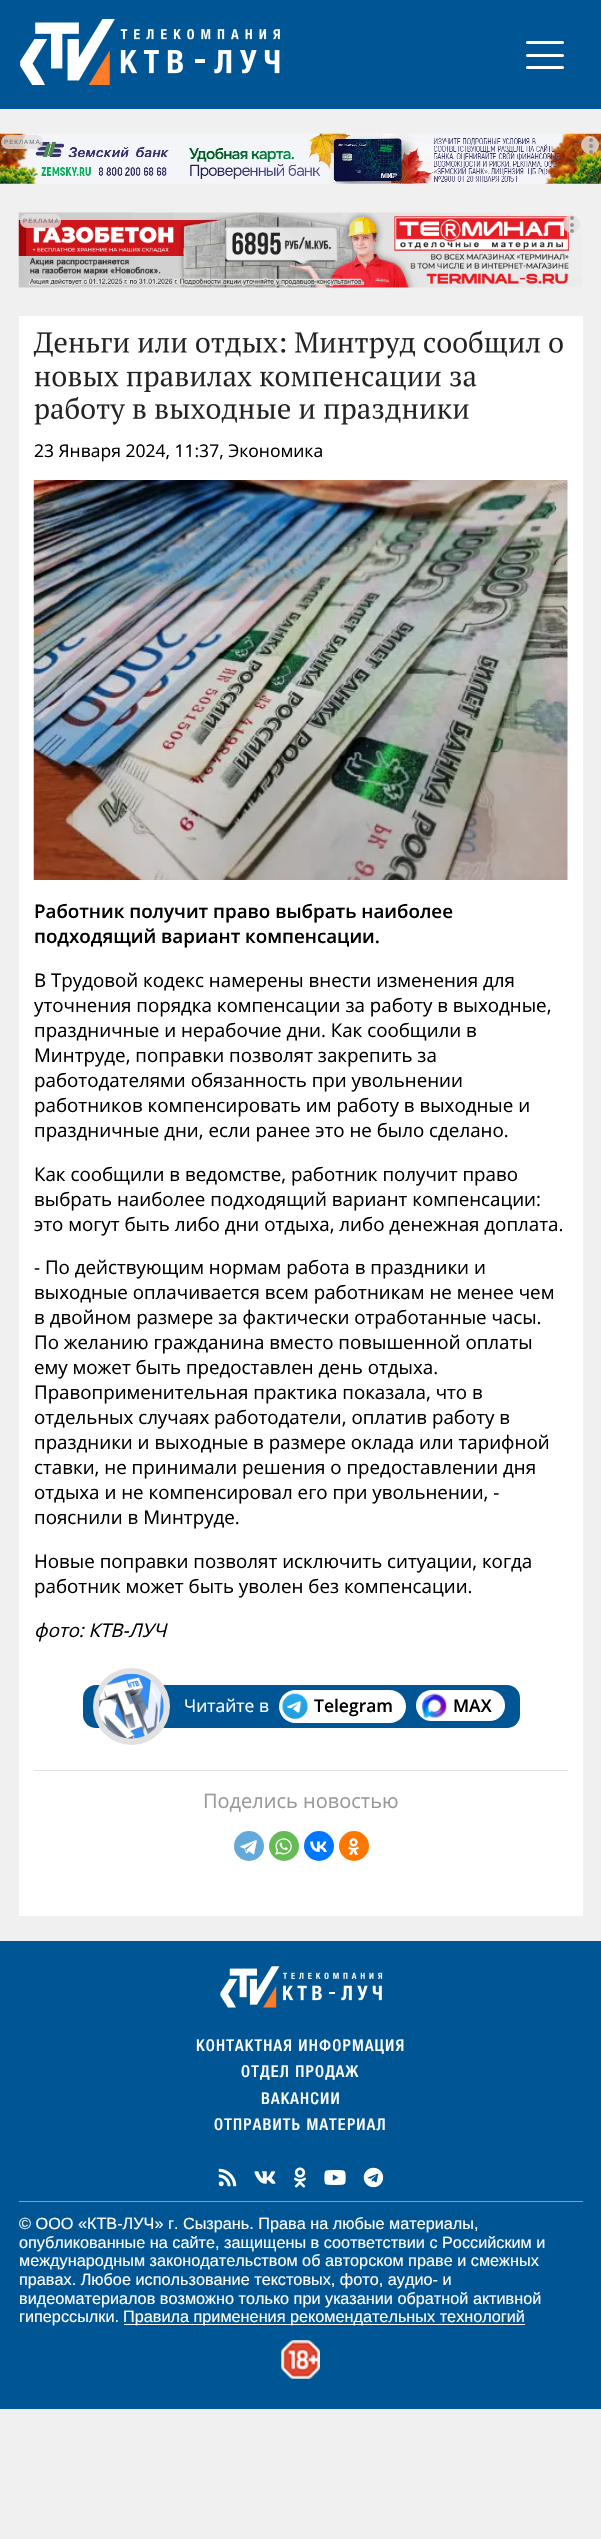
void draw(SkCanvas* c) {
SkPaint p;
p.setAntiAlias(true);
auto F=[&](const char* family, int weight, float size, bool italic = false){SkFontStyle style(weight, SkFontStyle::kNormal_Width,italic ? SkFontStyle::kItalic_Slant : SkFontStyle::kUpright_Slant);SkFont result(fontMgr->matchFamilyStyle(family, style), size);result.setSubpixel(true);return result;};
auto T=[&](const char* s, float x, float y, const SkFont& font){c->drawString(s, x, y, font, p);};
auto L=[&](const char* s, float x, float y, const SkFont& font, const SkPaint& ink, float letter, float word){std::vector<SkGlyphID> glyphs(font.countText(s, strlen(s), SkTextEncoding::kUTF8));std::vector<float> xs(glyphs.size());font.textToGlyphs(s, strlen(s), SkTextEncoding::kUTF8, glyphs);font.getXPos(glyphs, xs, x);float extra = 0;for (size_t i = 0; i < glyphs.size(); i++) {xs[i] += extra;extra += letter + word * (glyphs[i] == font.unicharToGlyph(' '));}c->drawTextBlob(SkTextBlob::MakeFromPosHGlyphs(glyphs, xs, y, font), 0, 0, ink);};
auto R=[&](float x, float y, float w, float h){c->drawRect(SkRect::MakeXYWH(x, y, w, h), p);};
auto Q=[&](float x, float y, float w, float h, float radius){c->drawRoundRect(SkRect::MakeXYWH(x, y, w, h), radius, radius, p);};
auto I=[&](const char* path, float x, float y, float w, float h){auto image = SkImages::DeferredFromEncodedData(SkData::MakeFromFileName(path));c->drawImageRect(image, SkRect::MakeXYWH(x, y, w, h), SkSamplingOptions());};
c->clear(0xfff0f0f0);
p.setColor(0xff005594);
R(0,0,601,109);
I("1.png",20,19,260,66);
p.setColor(0xffffffff);
Q(526,54,38,3,1.5);
Q(526,41,38,3,1.5);
Q(526,66,38,3,1.5);
I("2.png",0,133,601,51);
p.setColor(0xcce3e2e1);
Q(1,135,42,14,7);
auto f1 = F("Liberation Sans",400,6.25);
p.setColor(0xff72747b);
L("РЕКЛАМА",4,144,f1,p,1,0);
p.setColor(0xcce3e2e1);
c->drawCircle(590,145,9,p);
p.setColor(0xcc818181);
c->drawCircle(591,140,2,p);
c->drawCircle(591,146,2,p);
c->drawCircle(591,152,2,p);
I("3.png",18,212,564,76);
p.setColor(0xcce3e2e1);
Q(20,214,41,14,7);
p.setColor(0xff72747b);
L("РЕКЛАМА",23,223,f1,p,1,0);
p.setColor(0xcce3e2e1);
Q(563,215,17,18,8.5);
p.setColor(0xff979797);
c->drawCircle(572,218,2,p);
c->drawCircle(572,225,2,p);
c->drawCircle(572,231,2,p);
p.setColor(0xffffffff);
R(19,316,564,1600);
I("4.png",33,330,530,29);
I("5.png",34,371,443,21);
I("6.png",34,396,435,29);
auto f2 = F("Open Sans",400,17.5);
p.setColor(0xff000000);
T("23 Января 2024, 11:37, Экономика",34,457,f2);
I("7.png",33,480,535,400);
auto f3 = F("Open Sans",600,18.75);
T("Работник получит право выбрать наиболее",34,918,f3);
T("подходящий вариант компенсации.",34,943,f3);
auto f4 = F("Open Sans",400,18.75);
T("В Трудовой кодекс намерены внести изменения для",34,987,f4);
T("уточнения порядка компенсации за работу в выходные,",34,1012,f4);
T("праздничные и нерабочие дни. Как сообщили в",34,1037,f4);
T("Минтруде, поправки позволят закрепить за",34,1062,f4);
T("работодателями обязанность при увольнении",34,1087,f4);
T("работников компенсировать им работу в выходные и",34,1112,f4);
T("праздничные дни, если ранее это не было сделано.",34,1137,f4);
T("Как сообщили в ведомстве, работник получит право",34,1181,f4);
T("выбрать наиболее подходящий вариант компенсации:",34,1206,f4);
T("это могут быть либо дни отдыха, либо денежная доплата.",34,1231,f4);
T("- По действующим нормам работа в праздники и",34,1274,f4);
T("выходные оплачивается всем работникам не менее чем",34,1299,f4);
T("в двойном размере за фактически отработанные часы.",34,1324,f4);
T("По желанию гражданина вместо повышенной оплаты",34,1349,f4);
T("ему может быть предоставлен день отдыха.",34,1374,f4);
T("Правоприменительная практика показала, что в",34,1399,f4);
T("отдельных случаях работодатели, оплатив работу в",34,1424,f4);
T("праздники и выходные в размере оклада или тарифной",34,1449,f4);
T("ставки, не принимали решения о предоставлении дня",34,1474,f4);
T("отдыха и не компенсировал его при увольнении, -",34,1499,f4);
T("пояснили в Минтруде.",34,1524,f4);
T("Новые поправки позволят исключить ситуации, когда",34,1568,f4);
T("работник может быть уволен без компенсации.",34,1593,f4);
auto f5 = F("Open Sans",400,18.75,true);
T("фото: КТВ-ЛУЧ",34,1637,f5);
p.setColor(0xff005594);
Q(83,1685,437,43,13);
p.setColor(0xffe1e1e1);
c->drawCircle(131.5,1706.5,38.5,p);
I("8.png",98,1673,66,66);
p.setColor(0xffffffff);
T("Читайте в",184,1712,f2);
Q(279,1690,127,33,16.5);
I("9.png",282,1693,26,26);
auto f6 = F("Open Sans",600,17.5);
p.setColor(0xff000000);
T("Telegram",314,1712,f6);
p.setColor(0xffffffff);
Q(416,1690,89,31,15.5);
I("10.png",421,1693,26,25);
p.setColor(0xff000000);
T("MAX",453,1712,f6);
p.setColor(0xffe1e1e1);
R(34,1770,534,1);
auto f7 = F("Open Sans",400,20);
p.setColor(0xff999999);
T("Поделись новостью",203,1808,f7);
p.setColor(0xff64a9dc);
c->drawCircle(249,1846,15,p);
I("11.png",240,1840,17,15);
p.setColor(0xff65bc54);
c->drawCircle(284,1846,15,p);
I("12.png",275,1838,17,17);
p.setColor(0xff0077ff);
c->drawCircle(319,1846,15,p);
I("13.png",310,1841,17,11);
p.setColor(0xffff7700);
c->drawCircle(354,1846,15,p);
I("14.png",348,1838,12,17);
p.setColor(0xff005594);
R(0,1941,601,468);
I("15.png",220,1966,163,42);
auto f8 = F("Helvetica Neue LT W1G",500,16.25);
p.setColor(0xffffffff);
L("КОНТАКТНАЯ ИНФОРМАЦИЯ",196,2051,f8,p,1.25,0);
L("ОТДЕЛ ПРОДАЖ",241,2077,f8,p,1.25,0);
L("ВАКАНСИИ",261,2104,f8,p,1.25,0);
L("ОТПРАВИТЬ МАТЕРИАЛ",214,2130,f8,p,1.25,0);
I("16.png",218,2168,19,19);
I("17.png",254,2171,22,13);
I("18.png",294,2167,12,21);
I("19.png",324,2170,22,15);
I("20.png",363,2167,21,21);
p.setColor(0xfffd7c28);
R(19,2201,564,1);
auto f9 = F("Liberation Sans",400,16.25);
p.setColor(0xffffffff);
T("© ООО «КТВ-ЛУЧ» г. Сызрань. Права на любые материалы,",19,2229,f9);
T("опубликованные на сайте, защищены в соответствии с Российским и",19,2248,f9);
T("международным законодательством об авторском праве и смежных",19,2266,f9);
T("правах. Любое использование текстовых, фото, аудио- и",19,2285,f9);
T("видеоматериалов возможно только при указании обратной активной",19,2304,f9);
T("гиперссылки.",19,2322,f9);
R(124,2324,401,1);
T("Правила применения рекомендательных технологий",123,2322,f9);
I("21.png",281,2340,39,39);
}
